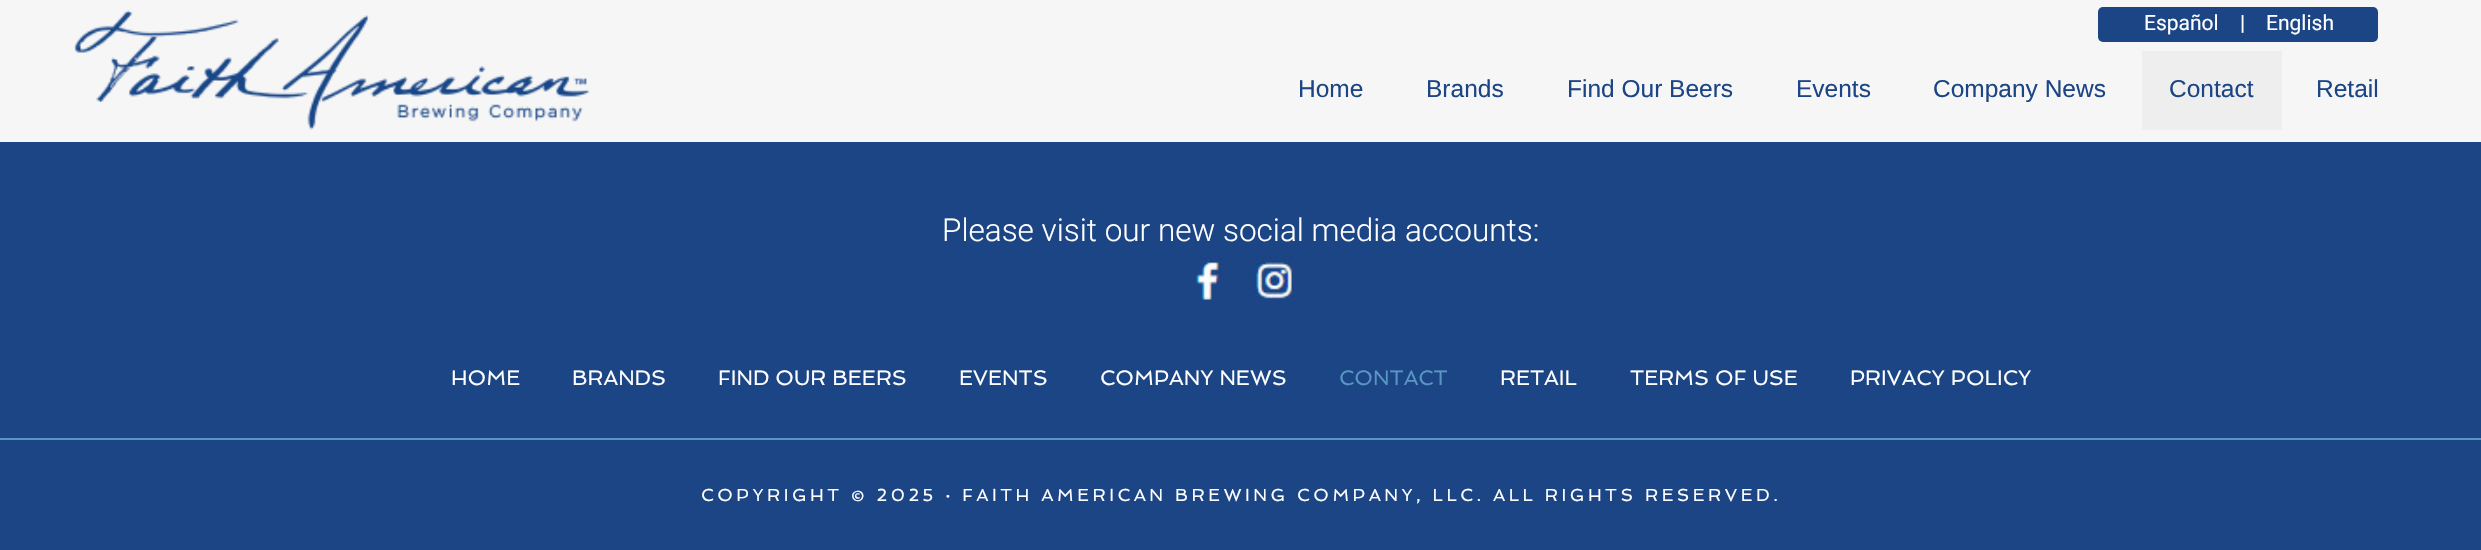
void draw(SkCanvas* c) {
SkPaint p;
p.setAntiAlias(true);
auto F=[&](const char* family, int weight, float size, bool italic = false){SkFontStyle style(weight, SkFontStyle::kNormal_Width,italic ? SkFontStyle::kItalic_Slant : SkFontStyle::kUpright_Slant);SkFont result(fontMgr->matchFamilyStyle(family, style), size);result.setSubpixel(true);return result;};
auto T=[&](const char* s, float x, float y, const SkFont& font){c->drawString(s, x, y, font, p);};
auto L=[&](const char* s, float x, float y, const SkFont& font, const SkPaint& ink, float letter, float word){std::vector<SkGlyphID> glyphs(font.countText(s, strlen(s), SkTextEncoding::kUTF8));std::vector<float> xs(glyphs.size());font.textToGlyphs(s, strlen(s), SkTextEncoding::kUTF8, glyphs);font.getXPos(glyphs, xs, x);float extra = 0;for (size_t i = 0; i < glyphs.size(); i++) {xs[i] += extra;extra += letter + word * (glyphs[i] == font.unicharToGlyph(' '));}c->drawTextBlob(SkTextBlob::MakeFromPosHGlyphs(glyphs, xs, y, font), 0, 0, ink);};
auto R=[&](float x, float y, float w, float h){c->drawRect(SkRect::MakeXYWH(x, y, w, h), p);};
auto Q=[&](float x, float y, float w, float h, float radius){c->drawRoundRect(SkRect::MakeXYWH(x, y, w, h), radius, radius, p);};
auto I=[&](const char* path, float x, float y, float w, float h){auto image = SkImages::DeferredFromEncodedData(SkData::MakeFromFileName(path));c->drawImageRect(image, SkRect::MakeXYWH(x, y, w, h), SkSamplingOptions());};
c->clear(0xff1c4585);
p.setColor(0xfff6f6f6);
R(0,0,2481,142);
I("1.png",74,10,516,120);
p.setColor(0xff1c4585);
Q(2098,7,280,35,5);
auto f1 = F("Roboto",400,21);
p.setColor(0xffffffff);
T("Español",2144,30,f1);
T("|",2240,30,f1);
T("English",2266,30,f1);
auto f2 = F("Liberation Sans",400,24.5);
p.setColor(0xff1c4585);
T("Home",1298,97,f2);
T("Brands",1426,97,f2);
T("Find Our Beers",1567,97,f2);
T("Events",1796,97,f2);
T("Company News",1933,97,f2);
p.setColor(0xffeeeeee);
R(2142,51,140,79);
p.setColor(0xff1c4585);
T("Contact",2169,97,f2);
T("Retail",2316,97,f2);
auto f3 = F("Roboto",300,31.5);
p.setColor(0xffffffff);
T("Please visit our new social media accounts:",942,241,f3);
I("2.png",1196,256,29,49);
I("3.png",1249,256,43,43);
p.setColor(0xff5997c2);
R(0,438,2481,2);
auto f4 = F("Spinnaker",400,21);
p.setColor(0xffffffff);
T("HOME",451,385,f4);
T("BRANDS",572,385,f4);
T("FIND OUR BEERS",718,385,f4);
T("EVENTS",959,385,f4);
T("COMPANY NEWS",1100,385,f4);
p.setColor(0xff5997c2);
T("CONTACT",1339,385,f4);
p.setColor(0xffffffff);
T("RETAIL",1500,385,f4);
T("TERMS OF USE",1630,385,f4);
T("PRIVACY POLICY",1850,385,f4);
auto f5 = F("Spinnaker",400,17.5);
L("COPYRIGHT © 2025 · FAITH AMERICAN BREWING COMPANY, LLC. ALL RIGHTS RESERVED.",701,501,f5,p,3.5,0);
}
